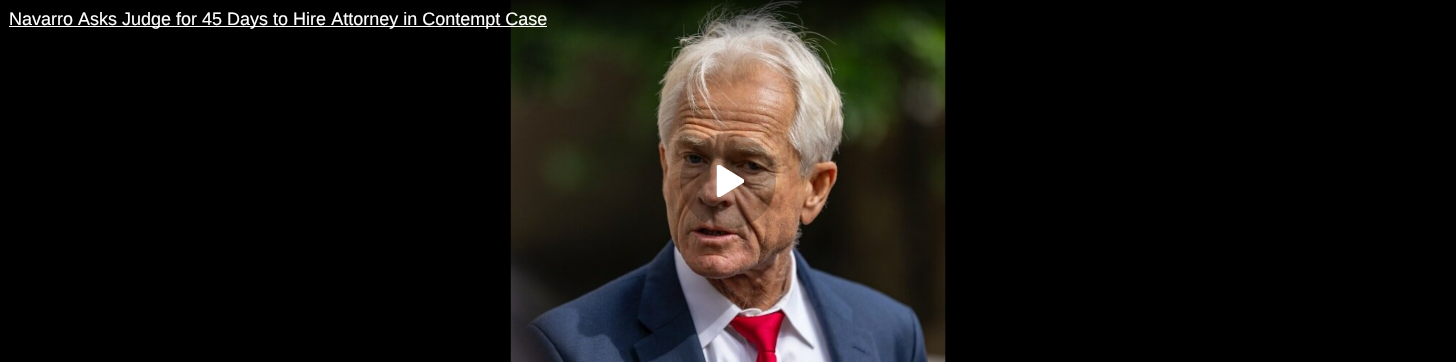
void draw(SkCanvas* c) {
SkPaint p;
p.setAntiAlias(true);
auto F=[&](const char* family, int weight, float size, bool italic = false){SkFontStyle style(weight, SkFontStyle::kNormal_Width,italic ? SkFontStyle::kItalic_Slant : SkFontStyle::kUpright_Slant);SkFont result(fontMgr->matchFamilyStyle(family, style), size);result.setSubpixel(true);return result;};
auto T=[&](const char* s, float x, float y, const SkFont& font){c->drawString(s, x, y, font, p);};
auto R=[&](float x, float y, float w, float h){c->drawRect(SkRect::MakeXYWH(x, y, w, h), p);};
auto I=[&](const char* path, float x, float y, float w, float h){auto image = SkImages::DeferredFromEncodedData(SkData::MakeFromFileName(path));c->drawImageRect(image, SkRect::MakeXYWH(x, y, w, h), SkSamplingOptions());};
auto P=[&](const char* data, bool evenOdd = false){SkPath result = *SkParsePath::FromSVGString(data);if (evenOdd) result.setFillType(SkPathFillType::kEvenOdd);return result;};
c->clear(0xff000000);
I("1.png",510,0,436,362);
{
const SkColor colors[] = {0xb3000000,0x00000000};
const float stops[] = {0,1};
const SkPoint ends[] = {{728,0}, {728,39}};
p.setShader(SkGradientShader::MakeLinear(ends, colors, stops, 2, SkTileMode::kClamp));
p.setAlpha(255);
}
R(510,0,436,38);
p.setShader(nullptr);
p.setColor(0xffffffff);
R(9,26,538,1);
auto f1 = F("Liberation Sans",400,18);
T("Navarro Asks Judge for 45 Days to Hire Attorney in Contempt Case",9,25,f1);
p.setColor(0x33000000);
c->drawCircle(728,181,48,p);
p.setColor(0xffffffff);
c->drawPath(P("M742 181l-23-14v28z"),p);
c->save();
c->clipRect(SkRect::MakeXYWH(712,165,32,32));
p.setStroke(true);
p.setStrokeWidth(4.4);
p.setStrokeJoin(SkPaint::kRound_Join);
c->drawPath(P("M742 181l-23-14v28z"),p);
c->restore();
}
